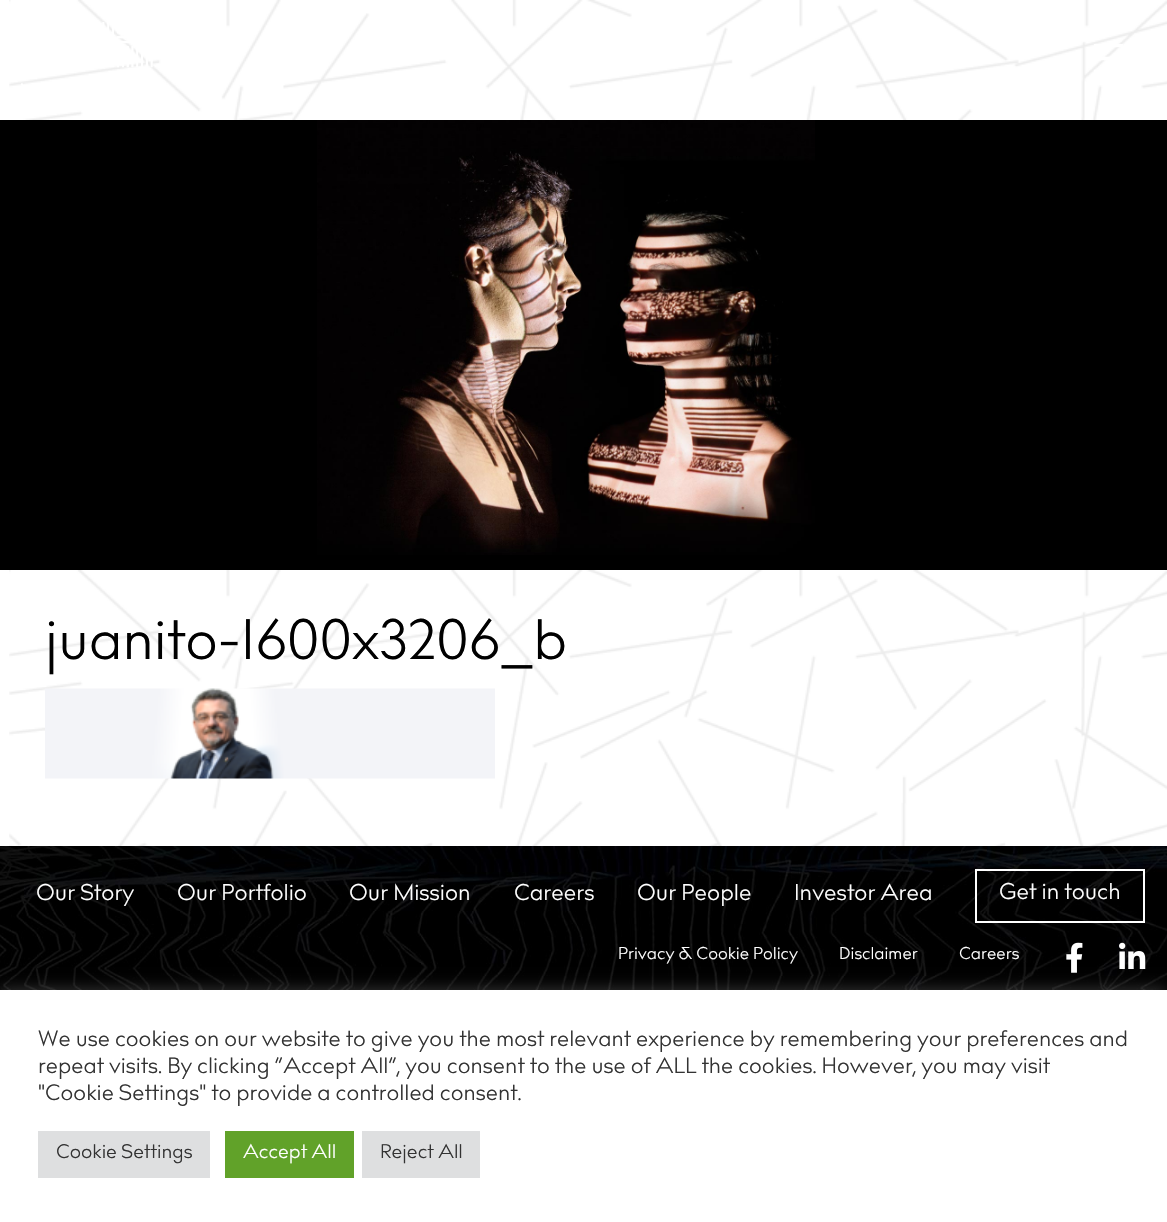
void draw(SkCanvas* c) {
SkPaint p;
p.setAntiAlias(true);
auto F=[&](const char* family, int weight, float size, bool italic = false){SkFontStyle style(weight, SkFontStyle::kNormal_Width,italic ? SkFontStyle::kItalic_Slant : SkFontStyle::kUpright_Slant);SkFont result(fontMgr->matchFamilyStyle(family, style), size);result.setSubpixel(true);return result;};
auto T=[&](const char* s, float x, float y, const SkFont& font){c->drawString(s, x, y, font, p);};
auto R=[&](float x, float y, float w, float h){c->drawRect(SkRect::MakeXYWH(x, y, w, h), p);};
auto I=[&](const char* path, float x, float y, float w, float h){auto image = SkImages::DeferredFromEncodedData(SkData::MakeFromFileName(path));c->drawImageRect(image, SkRect::MakeXYWH(x, y, w, h), SkSamplingOptions());};
c->clear(0xffffffff);
I("1.png",9,0,1158,120);
I("2.png",21,22,132,63);
I("3.png",1094,44,29,27);
p.setColor(0xff000000);
R(0,120,1167,450);
I("4.png",317,120,498,435);
I("5.png",9,570,1158,276);
auto f1 = F("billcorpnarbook",400,56.25);
T("juanito-1600x3206_b",45,659,f1);
I("6.png",45,688,450,91);
I("7.png",0,846,1167,144);
auto f2 = F("billcorpnarbook",400,22.5);
p.setColor(0xffffffff);
T("Our Story",36,900,f2);
T("Our Portfolio",177,900,f2);
T("Our Mission",349,900,f2);
T("Careers",514,900,f2);
T("Our People",637,900,f2);
T("Investor Area",794,900,f2);
p.setStroke(true);
p.setStrokeWidth(2);
c->drawRect(SkRect::MakeXYWH(976,870,168,52),p);
p.setStroke(false);
T("Get in touch",999,899,f2);
auto f3 = F("billcorpnarbook",400,16.9);
T("Privacy & Cookie Policy",618,959,f3);
T("Disclaimer",839,959,f3);
T("Careers",959,959,f3);
I("8.png",1066,942,17,31);
I("9.png",1119,942,27,27);
p.setColor(0x4dacabab);
p.setMaskFilter(SkMaskFilter::MakeBlur(kNormal_SkBlurStyle, 7.5));
c->drawRect(SkRect::MakeXYWH(0,989,1167,232),p);
p.setMaskFilter(nullptr);
p.setColor(0xffffffff);
R(0,990,1167,232);
auto f4 = F("billcorpnarbook",400,22);
p.setColor(0xff333333);
T("We use cookies on our website to give you the most relevant experience by remembering your preferences and",38,1046,f4);
T("repeat visits. By clicking “Accept All”, you consent to the use of ALL the cookies. However, you may visit",38,1073,f4);
T("\"Cookie Settings\" to provide a controlled consent.",38,1100,f4);
p.setColor(0xffdedfe0);
R(38,1131,172,47);
auto f5 = F("billcorpnarbook",400,19.5);
p.setColor(0xff333333);
T("Cookie Settings",56,1158,f5);
p.setColor(0xff61a229);
R(225,1131,129,47);
p.setColor(0xffffffff);
T("Accept All",243,1158,f5);
p.setColor(0xffdedfe0);
R(362,1131,118,47);
p.setColor(0xff333333);
T("Reject All",380,1158,f5);
}
